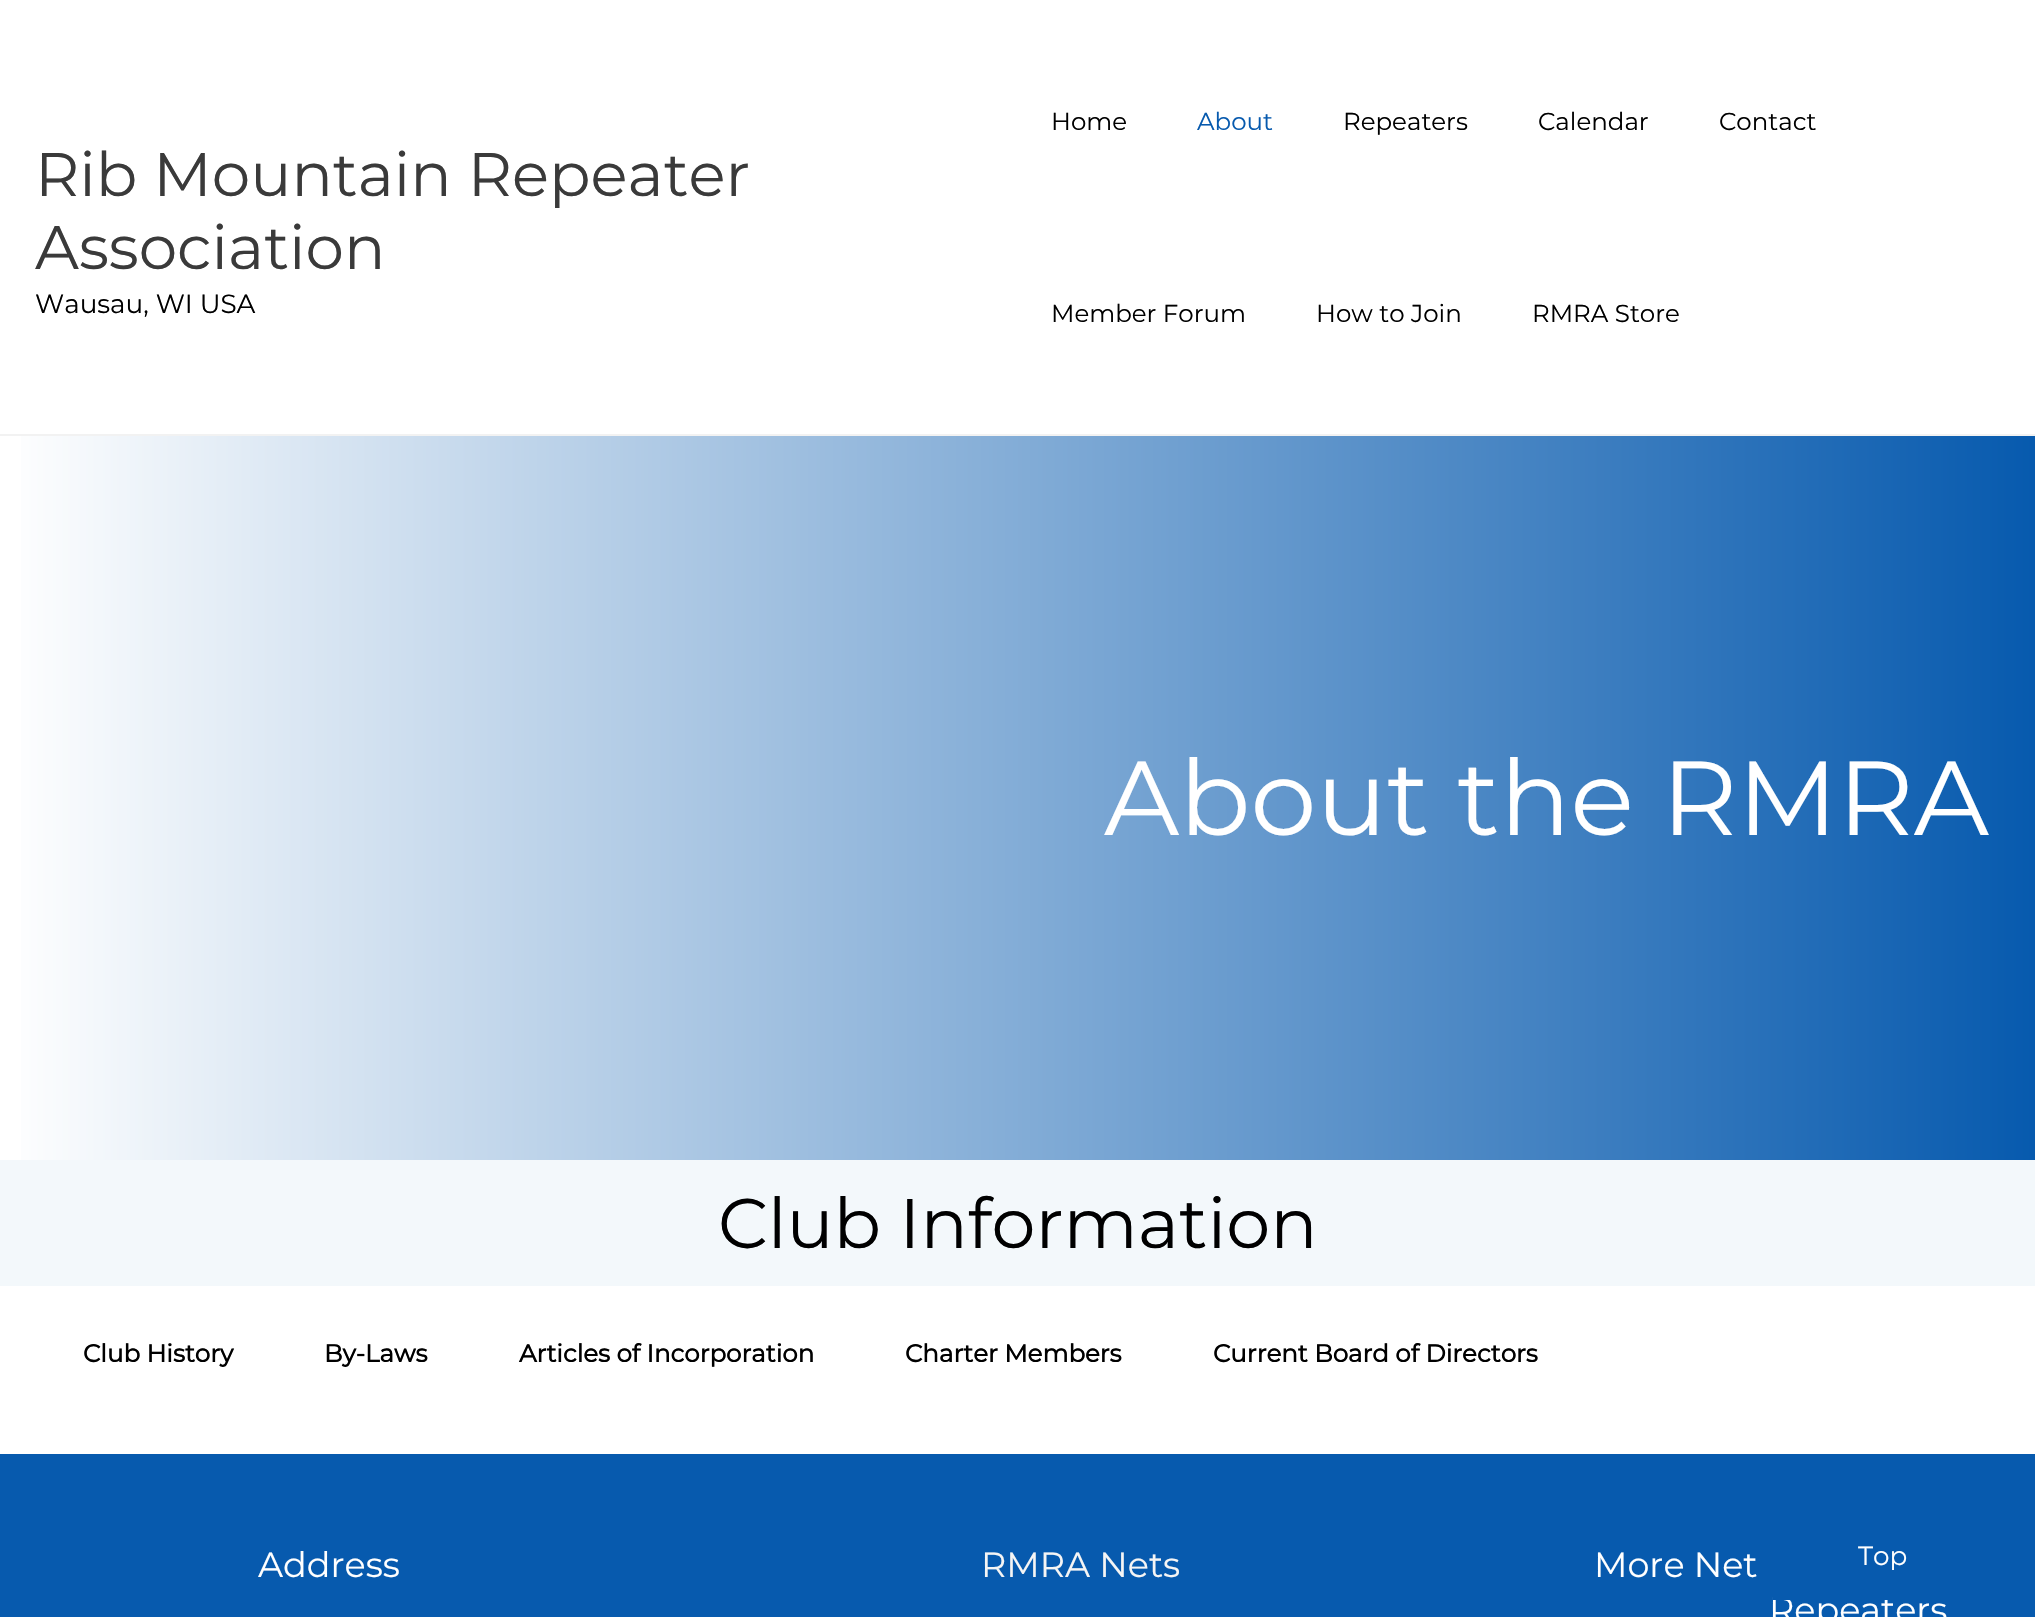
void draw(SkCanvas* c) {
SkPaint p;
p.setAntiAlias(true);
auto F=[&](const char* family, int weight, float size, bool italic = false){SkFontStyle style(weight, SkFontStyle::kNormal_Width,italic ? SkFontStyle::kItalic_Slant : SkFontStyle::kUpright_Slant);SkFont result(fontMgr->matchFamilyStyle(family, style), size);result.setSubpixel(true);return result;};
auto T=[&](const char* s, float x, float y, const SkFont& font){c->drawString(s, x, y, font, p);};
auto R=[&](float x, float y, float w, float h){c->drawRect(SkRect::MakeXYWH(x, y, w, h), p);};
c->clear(0xffffffff);
p.setColor(0xfff2f2f2);
R(0,434,2035,2);
auto f1 = F("Montserrat",400,61.25);
p.setColor(0xff3a3a3a);
T("Rib Mountain Repeater",35,196,f1);
T("Association",35,269,f1);
auto f2 = F("Montserrat",400,26.25);
p.setColor(0xff000000);
T("Wausau, WI USA",35,313,f2);
auto f3 = F("Montserrat",400,24.5);
T("Home",1051,130,f3);
p.setColor(0xff075aae);
T("About",1197,130,f3);
p.setColor(0xff000000);
T("Repeaters",1343,130,f3);
T("Calendar",1538,130,f3);
T("Contact",1719,130,f3);
T("Member Forum",1051,322,f3);
T("How to Join",1316,322,f3);
T("RMRA Store",1532,322,f3);
{
const SkColor colors[] = {0xffffffff,0xff075aae};
const float stops[] = {0,1};
const SkPoint ends[] = {{0,798}, {2035,798}};
p.setShader(SkGradientShader::MakeLinear(ends, colors, stops, 2, SkTileMode::kClamp));
p.setAlpha(255);
}
R(21,436,2014,724);
auto f4 = F("Montserrat",400,105);
p.setShader(nullptr);
p.setColor(0xffffffff);
T("About the RMRA",1104,835,f4);
p.setColor(0xfff3f8fb);
R(0,1160,2035,126);
auto f5 = F("Montserrat",400,70);
p.setColor(0xff000000);
T("Club Information",718,1248,f5);
auto f6 = F("Montserrat",700,24.5);
T("Club History",83,1362,f6);
T("By-Laws",324,1362,f6);
T("Articles of Incorporation",519,1362,f6);
T("Charter Members",905,1362,f6);
T("Current Board of Directors",1213,1362,f6);
p.setColor(0xff075aae);
R(0,1454,2035,163);
auto f7 = F("Montserrat",400,35);
p.setColor(0xffffffff);
T("Repeaters",1769,1622,f7);
p.setColor(0xff075aae);
R(1773,1597,115,3);
p.setColor(0xffffffff);
T("Top",1858,1565,f2);
T("Address",258,1577,f7);
p.setColor(0xfff5f5f5);
T("RMRA Nets",981,1577,f7);
p.setColor(0xffffffff);
T("More Net",1594,1577,f7);
}
